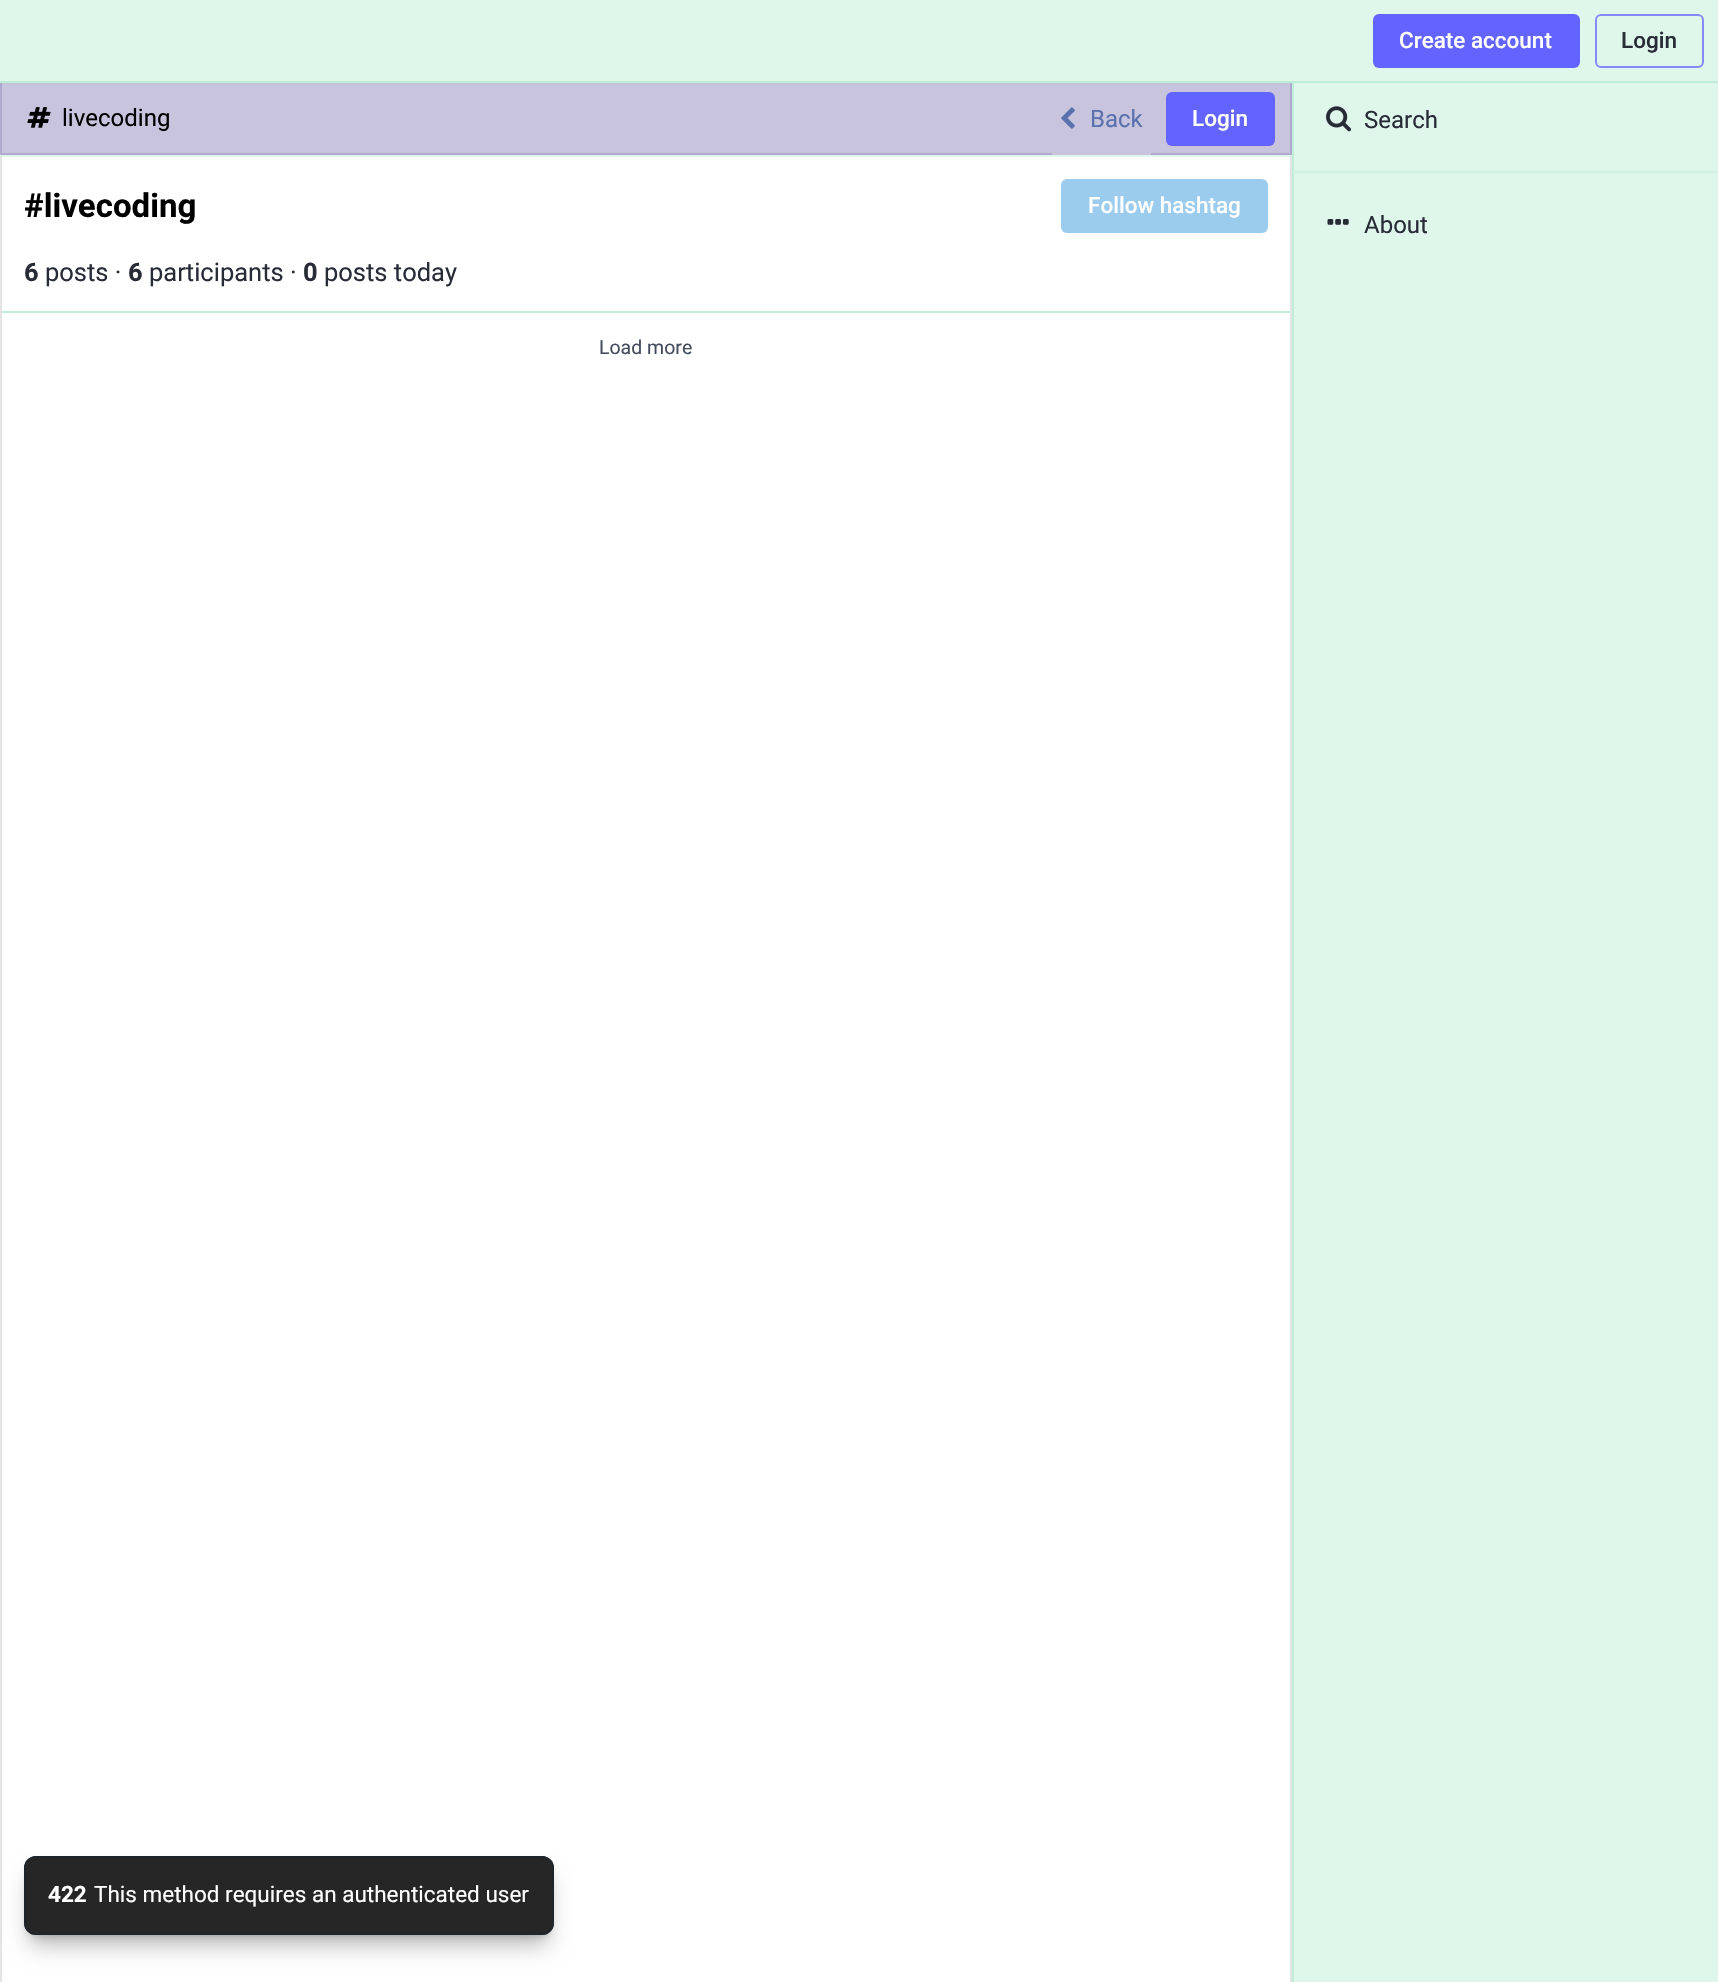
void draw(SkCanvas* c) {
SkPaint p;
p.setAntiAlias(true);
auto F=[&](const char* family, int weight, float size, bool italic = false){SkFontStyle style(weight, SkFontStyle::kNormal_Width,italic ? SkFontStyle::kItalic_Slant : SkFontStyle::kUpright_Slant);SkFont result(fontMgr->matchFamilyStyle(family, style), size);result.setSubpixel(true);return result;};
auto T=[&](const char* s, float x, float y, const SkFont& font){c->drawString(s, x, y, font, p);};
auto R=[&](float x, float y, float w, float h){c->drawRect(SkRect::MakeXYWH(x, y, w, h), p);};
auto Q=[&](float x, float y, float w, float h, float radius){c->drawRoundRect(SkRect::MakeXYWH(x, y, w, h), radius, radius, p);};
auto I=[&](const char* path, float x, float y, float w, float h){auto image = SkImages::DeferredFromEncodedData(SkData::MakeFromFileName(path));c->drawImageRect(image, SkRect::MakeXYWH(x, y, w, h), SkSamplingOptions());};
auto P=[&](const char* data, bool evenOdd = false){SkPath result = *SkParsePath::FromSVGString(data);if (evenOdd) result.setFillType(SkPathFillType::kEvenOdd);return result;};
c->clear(0xffffffff);
p.setColor(0xffdff6eb);
R(0,0,1718,81);
p.setColor(0xffbfedd7);
R(0,81,1718,2);
p.setColor(0xff6364ff);
Q(1373,14,207,54,6);
auto f1 = F("Roboto",500,22.5);
p.setColor(0xffffffff);
T("Create account",1399,48,f1);
p.setStroke(true);
p.setStrokeWidth(2);
p.setColor(0xff858afa);
c->drawRoundRect(SkRect::MakeXYWH(1596,15,107,52),5,5,p);
p.setStroke(false);
p.setColor(0xff282c37);
T("Login",1621,48,f1);
p.setColor(0xffc8c4dd);
R(2,83,1288,70);
p.setColor(0xffb0aace);
R(1290,83,2,72);
R(0,153,1292,2);
R(0,83,2,72);
I("1.png",27,107,24,21);
auto f2 = F("Roboto",400,24);
p.setColor(0xff000000);
T("livecoding",62,126,f2);
p.setColor(0xffc8c4dd);
R(1052,153,99,2);
I("2.png",1061,107,14,22);
p.setColor(0xff5971ad);
T("Back",1090,127,f2);
p.setColor(0xff6364ff);
Q(1166,92,109,54,6);
p.setColor(0xffffffff);
T("Login",1192,126,f1);
p.setColor(0xffdff6eb);
R(0,155,1292,2);
p.setColor(0xffe4e4e4);
R(1290,156,2,1826);
p.setColor(0xffd2e9de);
R(1290,156,2,1);
p.setColor(0xffe4e4e4);
R(0,156,2,1826);
p.setColor(0xffd2e9de);
R(0,156,2,1);
p.setColor(0xffbfedd7);
R(2,311,1288,2);
auto f3 = F("Roboto",700,33);
p.setColor(0xff000000);
T("#livecoding",24,217,f3);
p.setColor(0xff9bcbed);
Q(1061,179,207,54,6);
p.setColor(0xffffffff);
T("Follow hashtag",1088,213,f1);
auto f4 = F("Roboto",700,25.5);
p.setColor(0xff282c37);
T("6",24,281,f4);
auto f5 = F("Roboto",400,25.5);
T("posts ·",45,281,f5);
T("6",128,281,f4);
T("participants ·",149,281,f5);
T("0",303,281,f4);
T("posts today",324,281,f5);
auto f6 = F("Roboto",400,19.5);
p.setColor(0xff444b5d);
T("Load more",599,354,f6);
p.setColor(0xffdff6eb);
R(1294,83,424,1899);
p.setColor(0xffbfedd7);
R(1292,83,2,1899);
I("3.png",1326,106,26,26);
p.setColor(0xff282c37);
T("Search",1364,128,f2);
p.setColor(0xffcff2e1);
R(1293,171,425,2);
I("4.png",1327,219,22,6);
p.setColor(0xff282c37);
T("About",1364,233,f2);
c->save();
c->clipPath(P("M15 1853h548v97h-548zm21 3h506c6.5 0 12 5.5 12 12v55c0 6.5-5.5 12-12 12h-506c-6.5 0-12-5.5-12-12v-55c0-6.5 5.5-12 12-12z",true),true);
p.setColor(0x40000000);
p.setMaskFilter(SkMaskFilter::MakeBlur(kNormal_SkBlurStyle, 4.5));
c->drawRoundRect(SkRect::MakeXYWH(30,1868,518,67),6,6,p);
p.setMaskFilter(nullptr);
c->restore();
c->save();
c->clipPath(P("M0 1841h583v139h-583zm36 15h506c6.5 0 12 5.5 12 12v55c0 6.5-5.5 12-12 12h-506c-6.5 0-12-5.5-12-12v-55c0-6.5 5.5-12 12-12z",true),true);
p.setMaskFilter(SkMaskFilter::MakeBlur(kNormal_SkBlurStyle, 11));
c->drawRoundRect(SkRect::MakeXYWH(29,1875,520,71),8,8,p);
p.setMaskFilter(nullptr);
c->restore();
p.setColor(0xd9000000);
Q(24,1856,530,79,12);
p.setStroke(true);
p.setColor(0xd91f232b);
c->drawRoundRect(SkRect::MakeXYWH(25,1857,528,77),11,11,p);
auto f7 = F("Roboto",700,22.5);
p.setStroke(false);
p.setColor(0xffffffff);
T("422",48,1902,f7);
auto f8 = F("Roboto",400,22.5);
T("This method requires an authenticated user",94,1902,f8);
}
